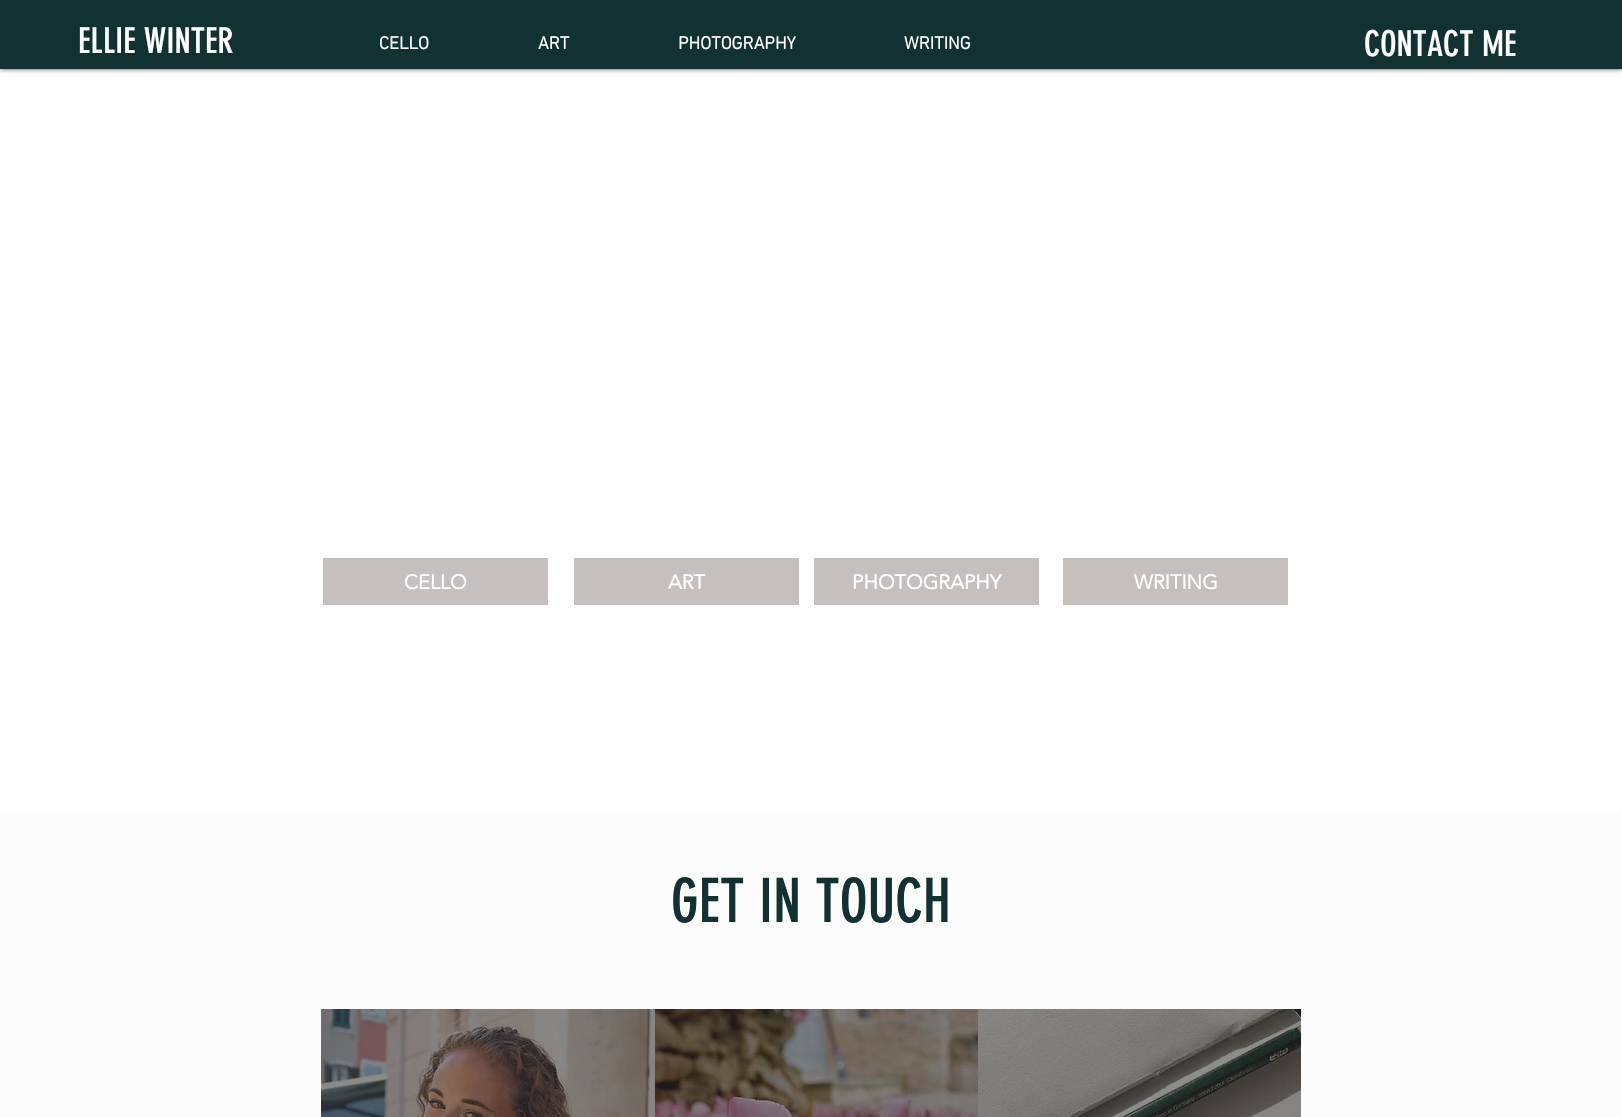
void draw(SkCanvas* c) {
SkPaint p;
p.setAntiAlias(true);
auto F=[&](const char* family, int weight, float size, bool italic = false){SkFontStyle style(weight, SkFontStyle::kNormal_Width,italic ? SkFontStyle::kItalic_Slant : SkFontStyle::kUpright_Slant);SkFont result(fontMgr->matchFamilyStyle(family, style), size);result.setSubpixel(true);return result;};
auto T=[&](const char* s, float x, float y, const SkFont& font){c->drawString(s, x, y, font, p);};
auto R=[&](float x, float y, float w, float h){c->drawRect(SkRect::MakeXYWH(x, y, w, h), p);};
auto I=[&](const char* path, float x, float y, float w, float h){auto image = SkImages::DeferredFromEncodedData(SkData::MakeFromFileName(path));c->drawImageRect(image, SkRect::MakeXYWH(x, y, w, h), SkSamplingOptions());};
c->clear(0xffffffff);
p.setColor(0xb3000000);
p.setMaskFilter(SkMaskFilter::MakeBlur(kNormal_SkBlurStyle, 2.5));
c->drawRect(SkRect::MakeXYWH(0,0,1622,69),p);
p.setMaskFilter(nullptr);
p.setColor(0xff123132);
R(0,0,1622,69);
auto f1 = F("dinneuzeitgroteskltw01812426",400,35);
p.setColor(0xffffffff);
T("ELLIE WINTER",78,53,f1);
auto f2 = F("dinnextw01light",700,18);
T("CELLO",379,49,f2);
T("ART",538,49,f2);
T("PHOTOGRAPHY",678,49,f2);
T("WRITING",904,49,f2);
T("CONTACT ME",1364,56,f1);
p.setColor(0xffc5bfbd);
R(323,558,225,47);
auto f3 = F("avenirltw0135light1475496",700,20);
p.setColor(0xffffffff);
T("CELLO",404,589,f3);
p.setColor(0xffc5bfbd);
R(574,558,225,47);
p.setColor(0xffffffff);
T("ART",668,589,f3);
p.setColor(0xffc5bfbd);
R(814,558,225,47);
p.setColor(0xffffffff);
T("PHOTOGRAPHY",852,589,f3);
p.setColor(0xffc5bfbd);
R(1063,558,225,47);
p.setColor(0xffffffff);
T("WRITING",1134,589,f3);
p.setColor(0xfffcfcfc);
R(0,809,1622,308);
auto f4 = F("dinneuzeitgroteskltw01812426",400,60);
p.setColor(0xff123132);
T("GET IN TOUCH",671,922,f4);
p.setColor(0xff2f2f30);
R(321,1009,980,108);
I("1.png",321,1009,334,108);
I("2.png",655,1009,323,108);
I("3.png",978,1009,323,108);
}
